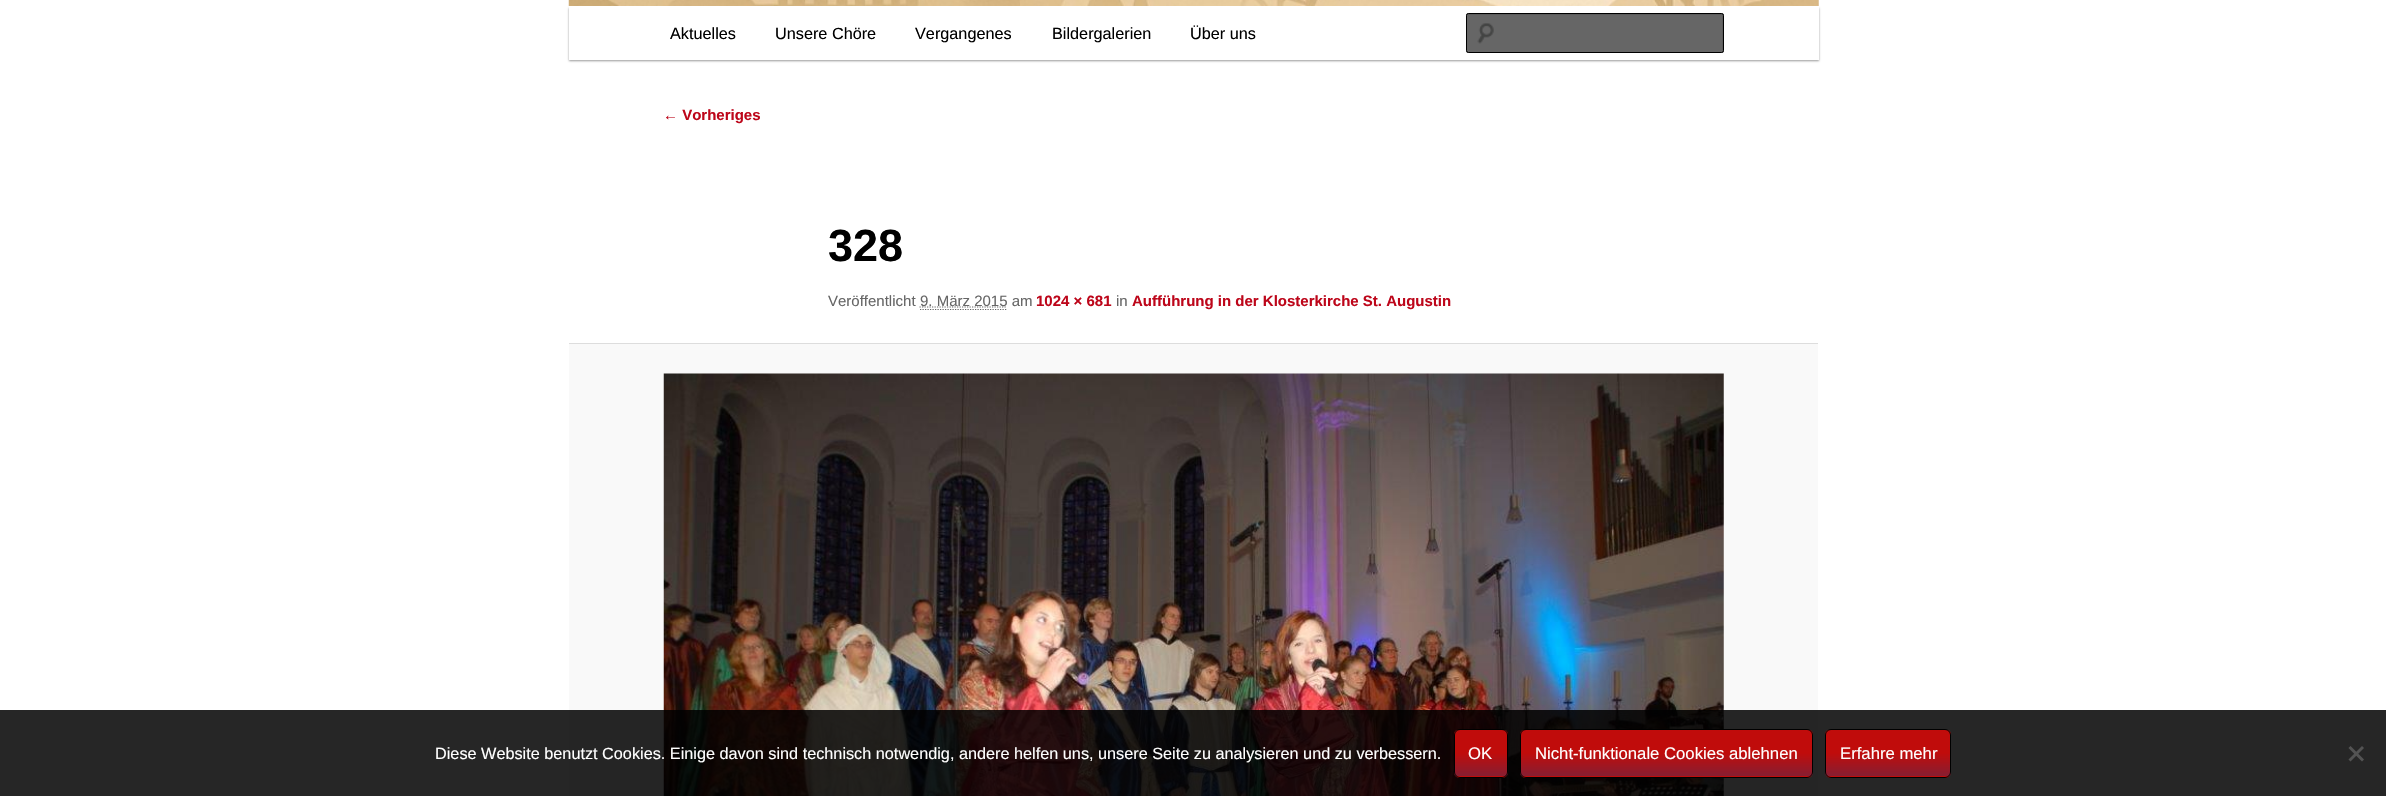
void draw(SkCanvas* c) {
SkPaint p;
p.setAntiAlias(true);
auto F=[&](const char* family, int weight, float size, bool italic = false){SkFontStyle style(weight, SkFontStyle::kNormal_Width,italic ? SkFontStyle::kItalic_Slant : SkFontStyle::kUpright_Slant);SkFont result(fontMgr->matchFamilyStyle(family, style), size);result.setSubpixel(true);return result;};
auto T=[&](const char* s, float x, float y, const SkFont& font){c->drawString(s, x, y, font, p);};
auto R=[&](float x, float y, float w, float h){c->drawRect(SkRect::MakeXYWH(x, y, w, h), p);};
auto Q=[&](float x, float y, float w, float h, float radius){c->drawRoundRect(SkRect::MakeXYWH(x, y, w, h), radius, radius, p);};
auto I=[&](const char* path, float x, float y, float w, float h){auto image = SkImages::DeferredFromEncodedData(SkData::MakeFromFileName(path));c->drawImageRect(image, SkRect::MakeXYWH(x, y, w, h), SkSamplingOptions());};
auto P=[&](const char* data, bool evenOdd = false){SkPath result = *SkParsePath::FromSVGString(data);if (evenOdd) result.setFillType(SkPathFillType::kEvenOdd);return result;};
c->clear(0xffffffff);
p.setColor(0x66000000);
p.setMaskFilter(SkMaskFilter::MakeBlur(kNormal_SkBlurStyle, 1));
c->drawRect(SkRect::MakeXYWH(569,8,1250,53),p);
p.setMaskFilter(nullptr);
I("1.png",568,0,1251,6);
p.setColor(0xffffffff);
R(569,6,1250,54);
auto f1 = F("Liberation Sans",400,16.25);
p.setColor(0xff000000);
T("Aktuelles",670,39,f1);
T("Unsere Chöre",775,39,f1);
T("Vergangenes",915,39,f1);
T("Bildergalerien",1052,39,f1);
T("Über uns",1190,39,f1);
p.setColor(0xff666666);
Q(1466,13,258,40,2.5);
I("2.png",1477,23,17,21);
p.setColor(0xff5c5c5c);
c->drawPath(P("M1469 15h252c1 0 1 1 1 1v35l1-1v-35l-1-1h-254v2z"),p);
p.setStroke(true);
p.setStrokeWidth(1);
p.setColor(0xff000000);
c->drawRoundRect(SkRect::MakeXYWH(1466.5,13.5,257,39),2,2,p);
auto f2 = F("Liberation Sans",700,15);
p.setStroke(false);
p.setColor(0xffbd061a);
T("← Vorheriges",663,120,f2);
auto f3 = F("Liberation Sans",700,45);
p.setColor(0xff000000);
T("328",828,261,f3);
auto f4 = F("Liberation Sans",400,15);
p.setColor(0xff666666);
T("Veröffentlicht",828,306,f4);
p.setStroke(true);
p.setStrokeWidth(1.2);
p.setPathEffect(SkDashPathEffect::Make({{1.25f,1.25f}}, 0));
c->drawPath(P("M919.5 307h87.5"),p);
p.setPathEffect(nullptr);
p.setStroke(false);
T("9. März 2015 am",920,306,f4);
p.setStroke(true);
p.setPathEffect(SkDashPathEffect::Make({{1.25f,1.25f}}, 0));
c->drawPath(P("M920 309.5h87.5"),p);
p.setPathEffect(nullptr);
p.setStroke(false);
p.setColor(0xffbd061a);
T("1024 × 681",1036,306,f2);
p.setColor(0xff666666);
T("in",1116,306,f4);
p.setColor(0xffbd061a);
T("Aufführung in der Klosterkirche St. Augustin",1132,306,f2);
p.setColor(0xfff9f9f9);
R(569,344,1249,452);
p.setColor(0xffdddddd);
R(569,343,1249,1);
I("3.png",663,373,1061,423);
p.setColor(0xd9000000);
R(0,710,2386,86);
p.setColor(0xffffffff);
T("Diese Website benutzt Cookies. Einige davon sind technisch notwendig, andere helfen uns, unsere Seite zu analysieren und zu verbessern.",435,759,f1);
c->save();
c->clipPath(P("M1460 729h42c3.5 0 6 2.5 6 6v37c0 3.5-2.5 6-6 6h-42c-3.5 0-6-2.5-6-6v-37c0-3.5 2.5-6 6-6z"),true);
{
const SkColor colors[] = {0xff861e32,0xffc00c0b};
const float stops[] = {0,.5};
const SkPoint ends[] = {{1481,776}, {1481,730}};
p.setShader(SkGradientShader::MakeLinear(ends, colors, stops, 2, SkTileMode::kClamp));
p.setAlpha(255);
}
R(1454,730,54,46);
{
const SkColor colors[] = {0xff861e32,0xffc00c0b};
const float stops[] = {0,.5};
const SkPoint ends[] = {{1481,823}, {1481,776}};
p.setShader(SkGradientShader::MakeLinear(ends, colors, stops, 2, SkTileMode::kClamp));
p.setAlpha(255);
}
R(1454,776,54,2);
c->restore();
p.setStroke(true);
p.setStrokeWidth(1);
p.setShader(nullptr);
p.setColor(0xff000000);
c->drawRoundRect(SkRect::MakeXYWH(1454.5,729.5,53,48),5.5,5.5,p);
auto f5 = F("Liberation Sans",400,16.7);
p.setStroke(false);
p.setColor(0xffffffff);
T("OK",1468,759,f5);
c->save();
c->clipPath(P("M1526 729h281c3.5 0 6 2.5 6 6v37c0 3.5-2.5 6-6 6h-281c-3.5 0-6-2.5-6-6v-37c0-3.5 2.5-6 6-6z"),true);
{
const SkColor colors[] = {0xff861e32,0xffc00c0b};
const float stops[] = {0,.5};
const SkPoint ends[] = {{1666,776}, {1666,730}};
p.setShader(SkGradientShader::MakeLinear(ends, colors, stops, 2, SkTileMode::kClamp));
p.setAlpha(255);
}
R(1520,730,293,46);
{
const SkColor colors[] = {0xff861e32,0xffc00c0b};
const float stops[] = {0,.5};
const SkPoint ends[] = {{1666,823}, {1666,776}};
p.setShader(SkGradientShader::MakeLinear(ends, colors, stops, 2, SkTileMode::kClamp));
p.setAlpha(255);
}
R(1520,776,293,2);
c->restore();
p.setStroke(true);
p.setShader(nullptr);
p.setColor(0xff000000);
c->drawRoundRect(SkRect::MakeXYWH(1520.5,729.5,292,48),5.5,5.5,p);
p.setStroke(false);
p.setColor(0xffffffff);
T("Nicht-funktionale Cookies ablehnen",1535,759,f5);
c->save();
c->clipPath(P("M1831 729h114c3.5 0 6 2.5 6 6v37c0 3.5-2.5 6-6 6h-114c-3.5 0-6-2.5-6-6v-37c0-3.5 2.5-6 6-6z"),true);
{
const SkColor colors[] = {0xff861e32,0xffc00c0b};
const float stops[] = {0,.5};
const SkPoint ends[] = {{1888,776}, {1888,730}};
p.setShader(SkGradientShader::MakeLinear(ends, colors, stops, 2, SkTileMode::kClamp));
p.setAlpha(255);
}
R(1825,730,126,46);
{
const SkColor colors[] = {0xff861e32,0xffc00c0b};
const float stops[] = {0,.5};
const SkPoint ends[] = {{1888,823}, {1888,776}};
p.setShader(SkGradientShader::MakeLinear(ends, colors, stops, 2, SkTileMode::kClamp));
p.setAlpha(255);
}
R(1825,776,126,2);
c->restore();
p.setStroke(true);
p.setShader(nullptr);
p.setColor(0xff000000);
c->drawRoundRect(SkRect::MakeXYWH(1825.5,729.5,125,48),5.5,5.5,p);
p.setStroke(false);
p.setColor(0xffffffff);
T("Erfahre mehr",1840,759,f5);
p.setColor(0xff535353);
c->drawPath(P("M2362 746l2 2l-13.5 13.5l-2-2z"),p);
c->drawPath(P("M2348.5 748l2-2l13.5 13.5l-2 2z"),p);
}
